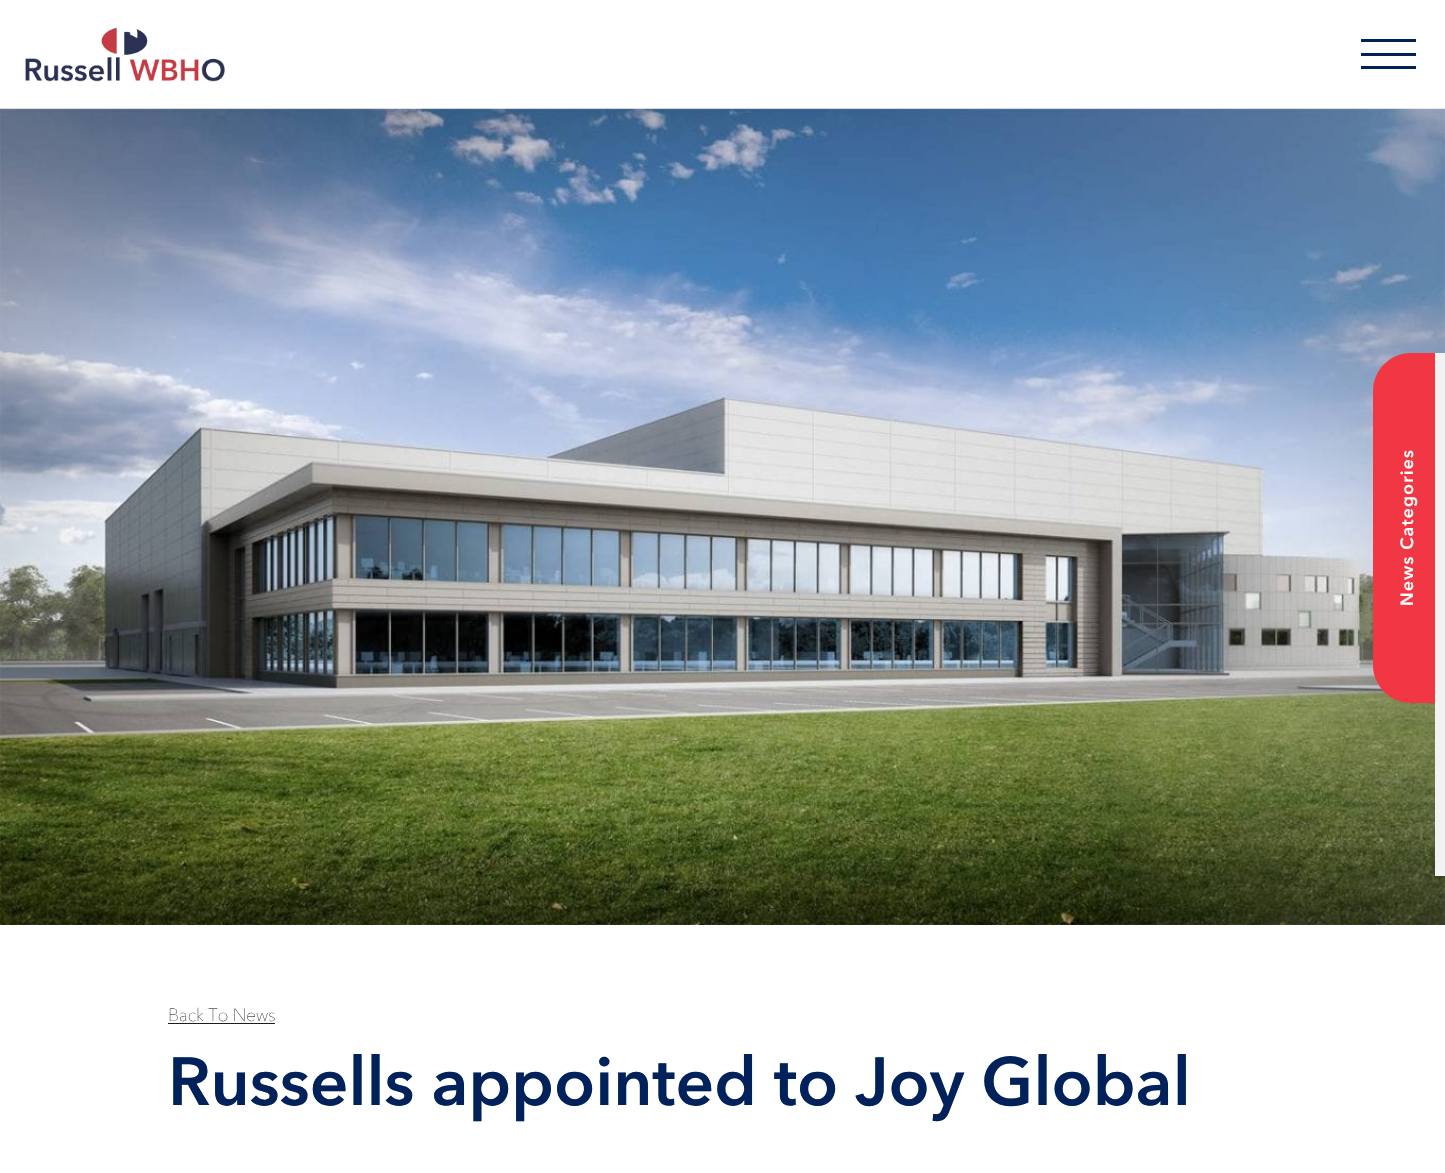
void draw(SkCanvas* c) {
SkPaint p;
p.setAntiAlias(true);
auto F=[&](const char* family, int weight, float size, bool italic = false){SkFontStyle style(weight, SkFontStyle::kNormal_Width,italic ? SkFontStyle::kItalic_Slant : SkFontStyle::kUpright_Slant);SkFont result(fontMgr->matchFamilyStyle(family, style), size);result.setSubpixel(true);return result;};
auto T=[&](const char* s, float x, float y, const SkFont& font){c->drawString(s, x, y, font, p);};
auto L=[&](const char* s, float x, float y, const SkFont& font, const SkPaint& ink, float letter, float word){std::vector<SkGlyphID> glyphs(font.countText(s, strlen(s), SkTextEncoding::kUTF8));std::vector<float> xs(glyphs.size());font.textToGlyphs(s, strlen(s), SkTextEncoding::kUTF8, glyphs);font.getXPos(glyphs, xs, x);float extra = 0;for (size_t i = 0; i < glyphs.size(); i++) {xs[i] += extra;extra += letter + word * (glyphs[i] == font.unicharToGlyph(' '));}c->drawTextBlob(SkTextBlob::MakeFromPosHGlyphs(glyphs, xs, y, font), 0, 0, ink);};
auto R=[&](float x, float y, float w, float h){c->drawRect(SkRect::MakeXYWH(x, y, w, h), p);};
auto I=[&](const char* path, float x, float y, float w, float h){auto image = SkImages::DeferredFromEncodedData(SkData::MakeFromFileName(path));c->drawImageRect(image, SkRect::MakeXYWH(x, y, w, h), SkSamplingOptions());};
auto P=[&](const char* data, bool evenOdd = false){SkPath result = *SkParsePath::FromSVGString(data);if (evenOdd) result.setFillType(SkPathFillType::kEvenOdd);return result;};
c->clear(0xffffffff);
I("1.png",25,27,200,55);
p.setColor(0xff002159);
R(1361,53,55,3);
R(1361,39,55,3);
R(1361,66,55,3);
I("2.png",0,108,1445,817);
p.setColor(0xfff23744);
c->drawPath(P("M1411 353h24v350h-24c-21 0-38-17-38-38v-274c0-21 17-38 38-38z"),p);
auto f1 = F("Avenir Next",600,17.5);
p.setColor(0xffffffff);
c->save();
c->rotate(-90,1413,606);
L("News Categories",1413,606,f1,p,1.25,0);
c->restore();
p.setColor(0xfff2f2f2);
R(1435,353,10,523);
auto f2 = F("Avenir Next",200,17.5);
p.setColor(0xff1d1d1b);
T("Back To News",168,1021,f2);
R(168,1023,107,1);
auto f3 = F("Avenir Next",600,67.5);
p.setColor(0xff002159);
T("Russells appointed to Joy Global",168,1105,f3);
}
